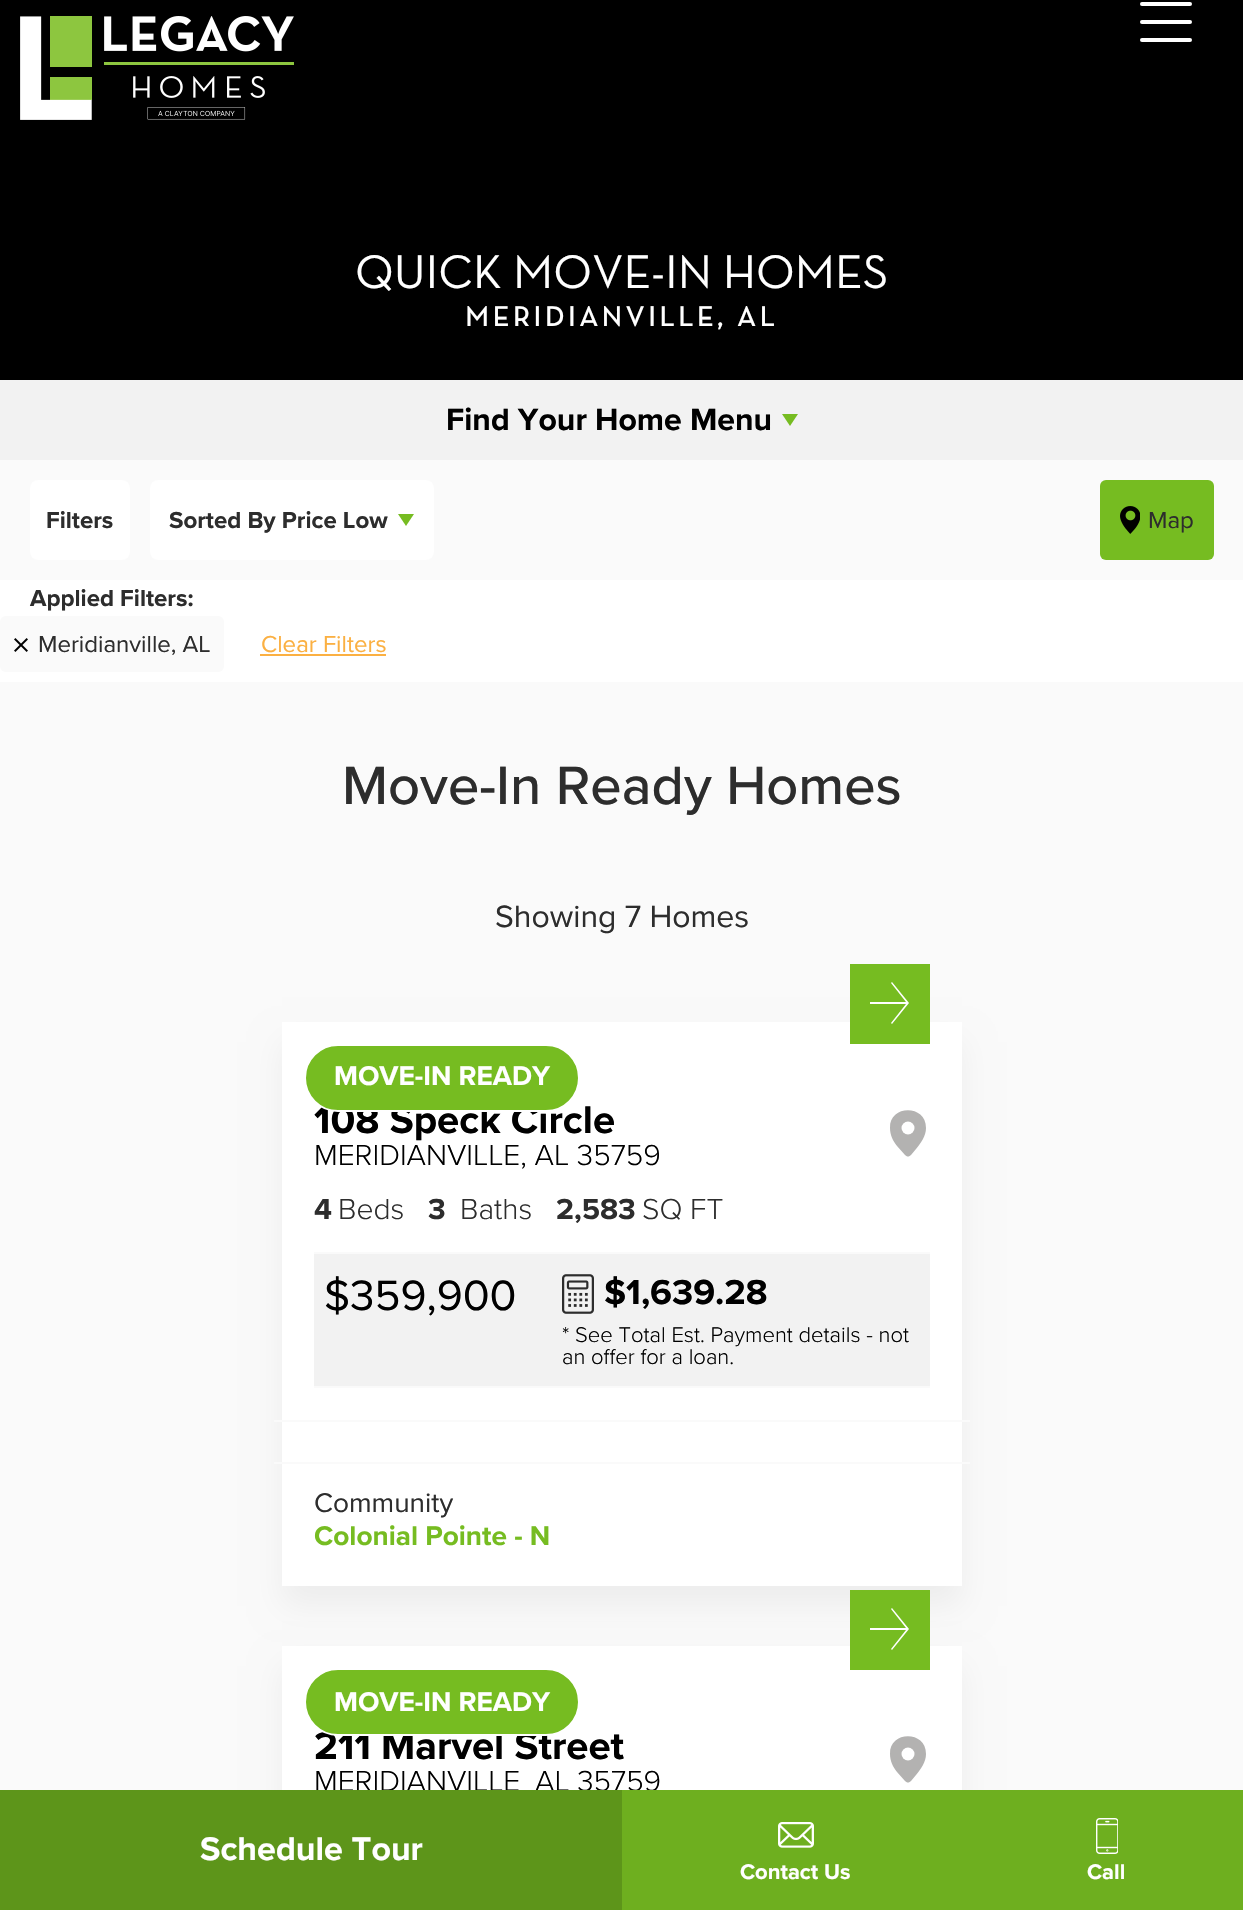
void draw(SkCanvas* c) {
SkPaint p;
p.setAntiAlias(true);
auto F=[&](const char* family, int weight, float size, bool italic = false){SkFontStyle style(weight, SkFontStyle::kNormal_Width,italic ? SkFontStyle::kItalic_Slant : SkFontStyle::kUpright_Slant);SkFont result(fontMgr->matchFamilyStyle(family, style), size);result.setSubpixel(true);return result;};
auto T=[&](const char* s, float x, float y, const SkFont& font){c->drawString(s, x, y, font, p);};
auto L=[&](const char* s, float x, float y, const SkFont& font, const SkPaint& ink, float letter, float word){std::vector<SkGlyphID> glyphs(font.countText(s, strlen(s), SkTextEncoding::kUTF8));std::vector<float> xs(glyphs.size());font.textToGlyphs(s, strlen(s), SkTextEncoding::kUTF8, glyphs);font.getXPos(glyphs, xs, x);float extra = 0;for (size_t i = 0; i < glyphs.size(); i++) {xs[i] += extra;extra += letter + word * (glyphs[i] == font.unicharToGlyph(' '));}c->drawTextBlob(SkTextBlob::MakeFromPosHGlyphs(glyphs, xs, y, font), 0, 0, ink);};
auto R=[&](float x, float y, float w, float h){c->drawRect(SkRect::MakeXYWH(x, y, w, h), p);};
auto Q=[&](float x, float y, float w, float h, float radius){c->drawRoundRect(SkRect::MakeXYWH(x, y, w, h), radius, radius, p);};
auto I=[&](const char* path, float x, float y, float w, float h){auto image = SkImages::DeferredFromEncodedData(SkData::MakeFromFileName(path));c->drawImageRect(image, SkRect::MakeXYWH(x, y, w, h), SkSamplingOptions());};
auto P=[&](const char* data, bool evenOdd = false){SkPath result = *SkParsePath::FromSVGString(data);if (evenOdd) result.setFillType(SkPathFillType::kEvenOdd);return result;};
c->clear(0xffffffff);
p.setColor(0xff000000);
R(0,0,1243,380);
I("1.png",20,16,274,104);
p.setColor(0xffffffff);
Q(1140,2,52,4,2);
Q(1140,20,52,4,2);
Q(1140,38,52,4,2);
auto f1 = F("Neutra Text",400,48);
T("QUICK MOVE-IN HOMES",355,288,f1);
auto f2 = F("Neutra Text",700,28);
L("MERIDIANVILLE, AL",465,326,f2,p,4,0);
p.setColor(0xfff2f2f2);
R(0,380,1243,80);
auto f3 = F("Proxima Nova",700,32);
p.setColor(0xff000000);
T("Find Your Home Menu",446,430,f3);
p.setColor(0xff76bc21);
c->drawPath(P("M782 414h16l-8 12z"),p);
p.setColor(0xfffafafa);
R(0,460,1243,120);
p.setColor(0xffffffff);
Q(30,480,100,80,8);
auto f4 = F("Proxima Nova",700,24);
p.setColor(0xff2d2d2d);
T("Filters",46,528,f4);
p.setColor(0xffffffff);
Q(150,480,284,80,8);
p.setColor(0xff2d2d2d);
T("Sorted By Price Low",169,528,f4);
p.setColor(0xff76bc21);
c->drawPath(P("M398 514h16l-8 12z"),p);
Q(1100,480,114,80,6);
I("2.png",1120,506,20,28);
auto f5 = F("Proxima Nova",400,24);
p.setColor(0xff2d2d2d);
T("Map",1148,528,f5);
T("Applied Filters:",30,606,f4);
p.setColor(0xfffafafa);
Q(0,616,224,56,6);
I("3.png",14,638,14,14);
p.setColor(0xff2d2d2d);
T("Meridianville, AL",38,652,f5);
p.setColor(0xfffbb042);
T("Clear Filters",261,652,f5);
R(260,654,126,2);
p.setColor(0xfffafafa);
R(0,682,1243,1108);
auto f6 = F("Proxima Nova",500,56);
p.setColor(0xff2d2d2d);
T("Move-In Ready Homes",342,804,f6);
auto f7 = F("Proxima Nova",400,32);
T("Showing 7 Homes",495,927,f7);
p.setColor(0x0d000000);
p.setMaskFilter(SkMaskFilter::MakeBlur(kNormal_SkBlurStyle, 15));
c->drawRect(SkRect::MakeXYWH(282,1042,680,564),p);
p.setMaskFilter(nullptr);
p.setColor(0xffffffff);
R(282,1022,680,564);
p.setColor(0xff76bc21);
R(850,964,80,80);
p.setColor(0xffffffff);
c->drawPath(P("M891 1023l1 1l17-21l-17-21l-1 1l15 19h-36v2h36l-15 19",true),p);
auto f8 = F("Proxima Nova",700,40);
p.setColor(0xff000000);
T("108 Speck Circle",314,1133,f8);
p.setColor(0xff76bc21);
c->drawRoundRect(SkRect::MakeXYWH(305,1045,274,66),33,33,p);
p.setStroke(true);
p.setStrokeWidth(2);
p.setColor(0xffffffff);
c->drawRoundRect(SkRect::MakeXYWH(305,1045,274,66),33,33,p);
auto f9 = F("Proxima Nova",700,28);
p.setStroke(false);
T("MOVE-IN READY",334,1085,f9);
auto f10 = F("Proxima Nova",300,30);
p.setColor(0xff000000);
T("MERIDIANVILLE, AL 35759",314,1165,f10);
p.setColor(0xffb3b2b1);
c->drawPath(P("M926 1128c0 8-5 15-10 21l-5 6c-3 2-3 2-6 0l-8-9c-4-5-7-11-7-18c-1-23 36-24 36 0z"),p);
p.setColor(0xffffffff);
c->drawCircle(908,1128,6.5,p);
auto f11 = F("Proxima Nova",700,30);
p.setColor(0xff2d2d2d);
T("4",314,1219,f11);
T("Beds",338,1219,f10);
T("3",428,1219,f11);
T("Baths",460,1219,f10);
T("2,583",556,1219,f11);
T("SQ FT",642,1219,f10);
p.setColor(0xfff2f2f2);
R(314,1254,616,132);
p.setColor(0xfffafafa);
R(314,1252,616,2);
R(314,1386,616,2);
auto f12 = F("Proxima Nova",400,44);
p.setColor(0xff000000);
T("$359,900",324,1310,f12);
I("4.png",562,1274,32,40);
auto f13 = F("Proxima Nova",700,36);
T("$1,639.28",604,1304,f13);
auto f14 = F("Proxima Nova",300,22);
T("* See Total Est. Payment details - not",562,1342,f14);
T("an offer for a loan.",562,1364,f14);
p.setColor(0xfffafafa);
R(274,1420,696,2);
R(274,1462,696,2);
auto f15 = F("Proxima Nova",400,28);
p.setColor(0xff2d2d2d);
T("Community",314,1512,f15);
p.setColor(0xff76bc21);
T("Colonial Pointe - N",314,1545,f9);
p.setColor(0x0d000000);
p.setMaskFilter(SkMaskFilter::MakeBlur(kNormal_SkBlurStyle, 15));
c->drawRect(SkRect::MakeXYWH(282,1666,680,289),p);
p.setMaskFilter(nullptr);
p.setColor(0xffffffff);
R(282,1646,680,144);
p.setColor(0xff76bc21);
R(850,1590,80,80);
p.setColor(0xffffffff);
c->drawPath(P("M891 1649l1 1l17-21l-17-21l-1 1l15 19h-36v2h36l-15 19",true),p);
p.setColor(0xff000000);
T("211 Marvel Street",314,1759,f8);
p.setColor(0xff76bc21);
c->drawRoundRect(SkRect::MakeXYWH(305,1669,274,66),33,33,p);
p.setStroke(true);
p.setColor(0xffffffff);
c->drawRoundRect(SkRect::MakeXYWH(305,1669,274,66),33,33,p);
p.setStroke(false);
T("MOVE-IN READY",334,1711,f9);
p.setColor(0xff000000);
T("MERIDIANVILLE",314,1791,f10);
T("AL 35759",535,1791,f10);
p.setColor(0xffb3b2b1);
c->drawPath(P("M926 1754c0 8-5 15-10 21l-5 6c-3 2-3 2-6 0l-8-9c-4-5-7-11-7-18c-1-23 36-24 36 0z"),p);
p.setColor(0xffffffff);
c->drawCircle(908,1754,6.5,p);
p.setColor(0xff5d951a);
R(0,1790,622,120);
auto f16 = F("Proxima Nova",700,34);
p.setColor(0xffffffff);
T("Schedule Tour",200,1860,f16);
p.setColor(0xff6eaf1f);
R(622,1790,621,120);
I("5.png",778,1822,36,26);
auto f17 = F("Proxima Nova",700,22);
p.setColor(0xffffffff);
T("Contact Us",740,1879,f17);
I("6.png",1096,1818,22,36);
T("Call",1087,1879,f17);
}
